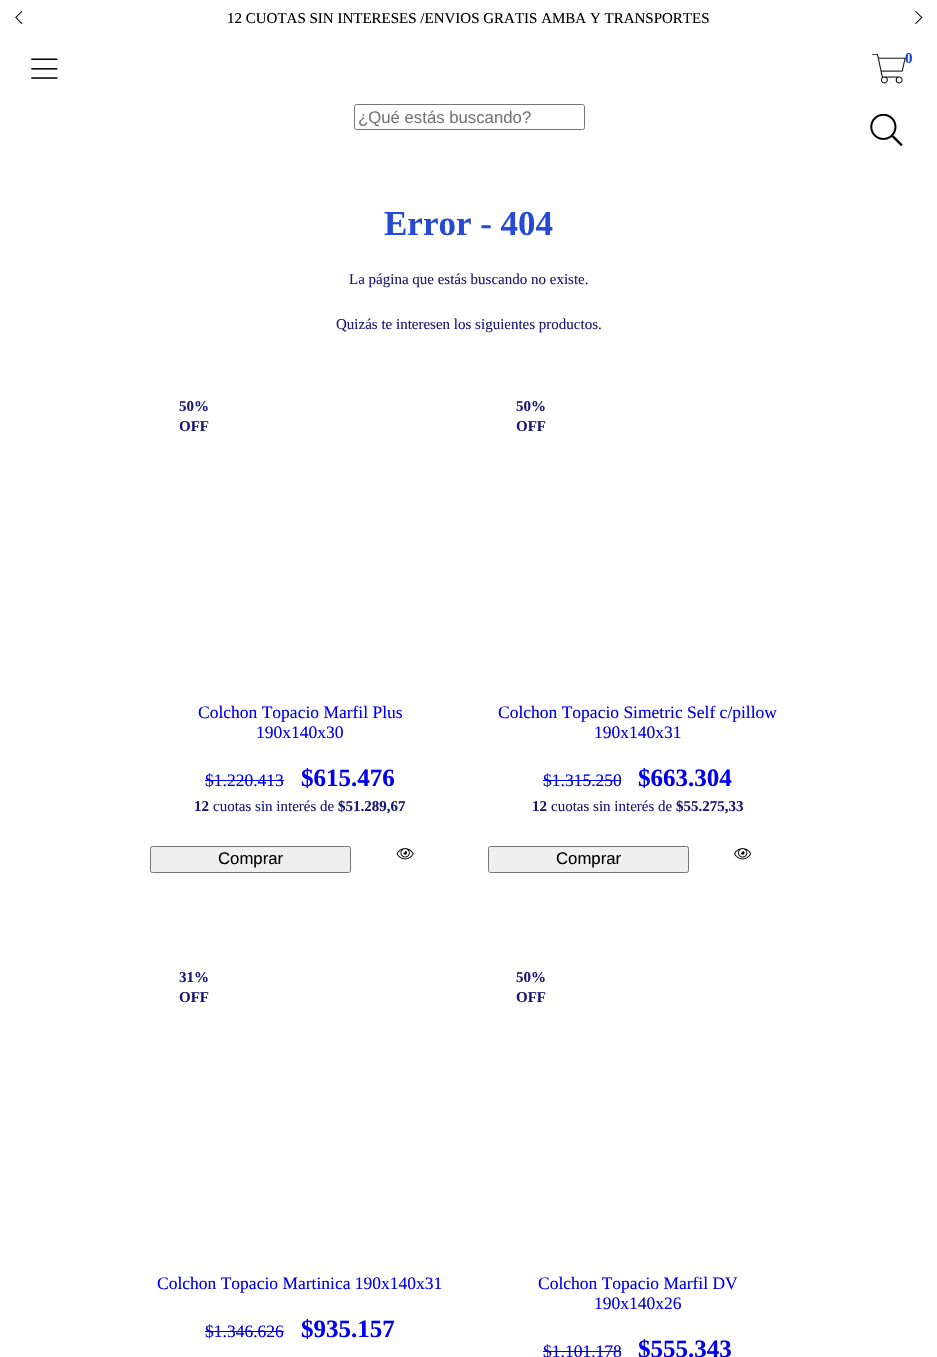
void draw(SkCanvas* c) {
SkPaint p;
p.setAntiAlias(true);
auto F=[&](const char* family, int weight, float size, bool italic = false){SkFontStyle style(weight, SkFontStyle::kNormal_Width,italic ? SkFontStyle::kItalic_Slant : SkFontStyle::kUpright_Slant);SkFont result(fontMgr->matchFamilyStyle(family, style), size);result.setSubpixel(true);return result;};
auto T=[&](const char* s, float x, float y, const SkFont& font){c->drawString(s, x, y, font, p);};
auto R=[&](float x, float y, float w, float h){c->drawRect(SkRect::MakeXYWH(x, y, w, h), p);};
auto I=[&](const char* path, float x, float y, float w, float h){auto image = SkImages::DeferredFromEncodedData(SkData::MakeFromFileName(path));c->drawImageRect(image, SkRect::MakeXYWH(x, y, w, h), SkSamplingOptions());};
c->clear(0xffffffff);
I("1.png",15,11,8,13);
auto f1 = F("Liberation Serif",400,15);
p.setColor(0xff000000);
T("12 CUOTAS SIN INTERESES /ENVIOS GRATIS AMBA Y TRANSPORTES",227,23,f1);
I("2.png",915,11,8,13);
I("3.png",31,58,27,21);
I("4.png",872,54,34,30);
auto f2 = F("Liberation Serif",700,15);
p.setColor(0xff163fda);
T("0",905,63,f2);
p.setStroke(true);
p.setStrokeWidth(1);
p.setColor(0xff767676);
c->drawRoundRect(SkRect::MakeXYWH(354.5,104.5,230,25),2,2,p);
auto f3 = F("Liberation Sans",400,16.75);
p.setStroke(false);
p.setColor(0xff757575);
T("¿Qué estás buscando?",358,123,f3);
I("5.png",870,114,33,32);
auto f4 = F("Liberation Serif",700,35);
p.setColor(0xff264ad5);
T("Error - 404",384,235,f4);
p.setColor(0xff1c1775);
T("La página que estás buscando no existe.",349,284,f1);
T("Quizás te interesen los siguientes productos.",336,329,f1);
T("50%",179,411,f2);
T("OFF",179,431,f2);
auto f5 = F("Liberation Serif",400,17.5);
p.setColor(0xff0000ee);
T("Colchon Topacio Marfil Plus",198,718,f5);
T("190x140x30",256,738,f5);
T("$1.220.413",205,786,f5);
R(205,780,79,1);
auto f6 = F("Liberation Serif",700,25);
T("$615.476",301,786,f6);
p.setColor(0xff1c1775);
T("12",194,811,f2);
T("cuotas sin interés de",213,811,f1);
T("$51.289,67",338,811,f2);
p.setColor(0xffefefef);
c->drawRoundRect(SkRect::MakeXYWH(150.5,846.5,200,26),2,2,p);
p.setStroke(true);
p.setColor(0xff767676);
c->drawRoundRect(SkRect::MakeXYWH(150.5,846.5,200,26),2,2,p);
p.setStroke(false);
p.setColor(0xff000000);
T("Comprar",218,864,f3);
I("6.png",396,848,18,12);
p.setColor(0xff1c1775);
T("50%",516,411,f2);
T("OFF",516,431,f2);
p.setColor(0xff0000ee);
T("Colchon Topacio Simetric Self c/pillow",498,718,f5);
T("190x140x31",594,738,f5);
T("$1.315.250",543,786,f5);
R(543,780,78,1);
T("$663.304",638,786,f6);
p.setColor(0xff1c1775);
T("12",532,811,f2);
T("cuotas sin interés de",551,811,f1);
T("$55.275,33",676,811,f2);
p.setColor(0xffefefef);
c->drawRoundRect(SkRect::MakeXYWH(488.5,846.5,200,26),2,2,p);
p.setStroke(true);
p.setColor(0xff767676);
c->drawRoundRect(SkRect::MakeXYWH(488.5,846.5,200,26),2,2,p);
p.setStroke(false);
p.setColor(0xff000000);
T("Comprar",556,864,f3);
I("7.png",734,848,18,12);
p.setColor(0xff1c1775);
T("31%",179,982,f2);
T("OFF",179,1002,f2);
p.setColor(0xff0000ee);
T("Colchon Topacio Martinica 190x140x31",157,1289,f5);
T("$1.346.626",205,1337,f5);
R(205,1331,79,1);
T("$935.157",301,1337,f6);
p.setColor(0xff1c1775);
T("50%",516,982,f2);
T("OFF",516,1002,f2);
p.setColor(0xff0000ee);
T("Colchon Topacio Marfil DV",538,1289,f5);
T("190x140x26",594,1309,f5);
T("$1.101.178",543,1357,f5);
R(543,1351,78,1);
T("$555.343",638,1357,f6);
}
